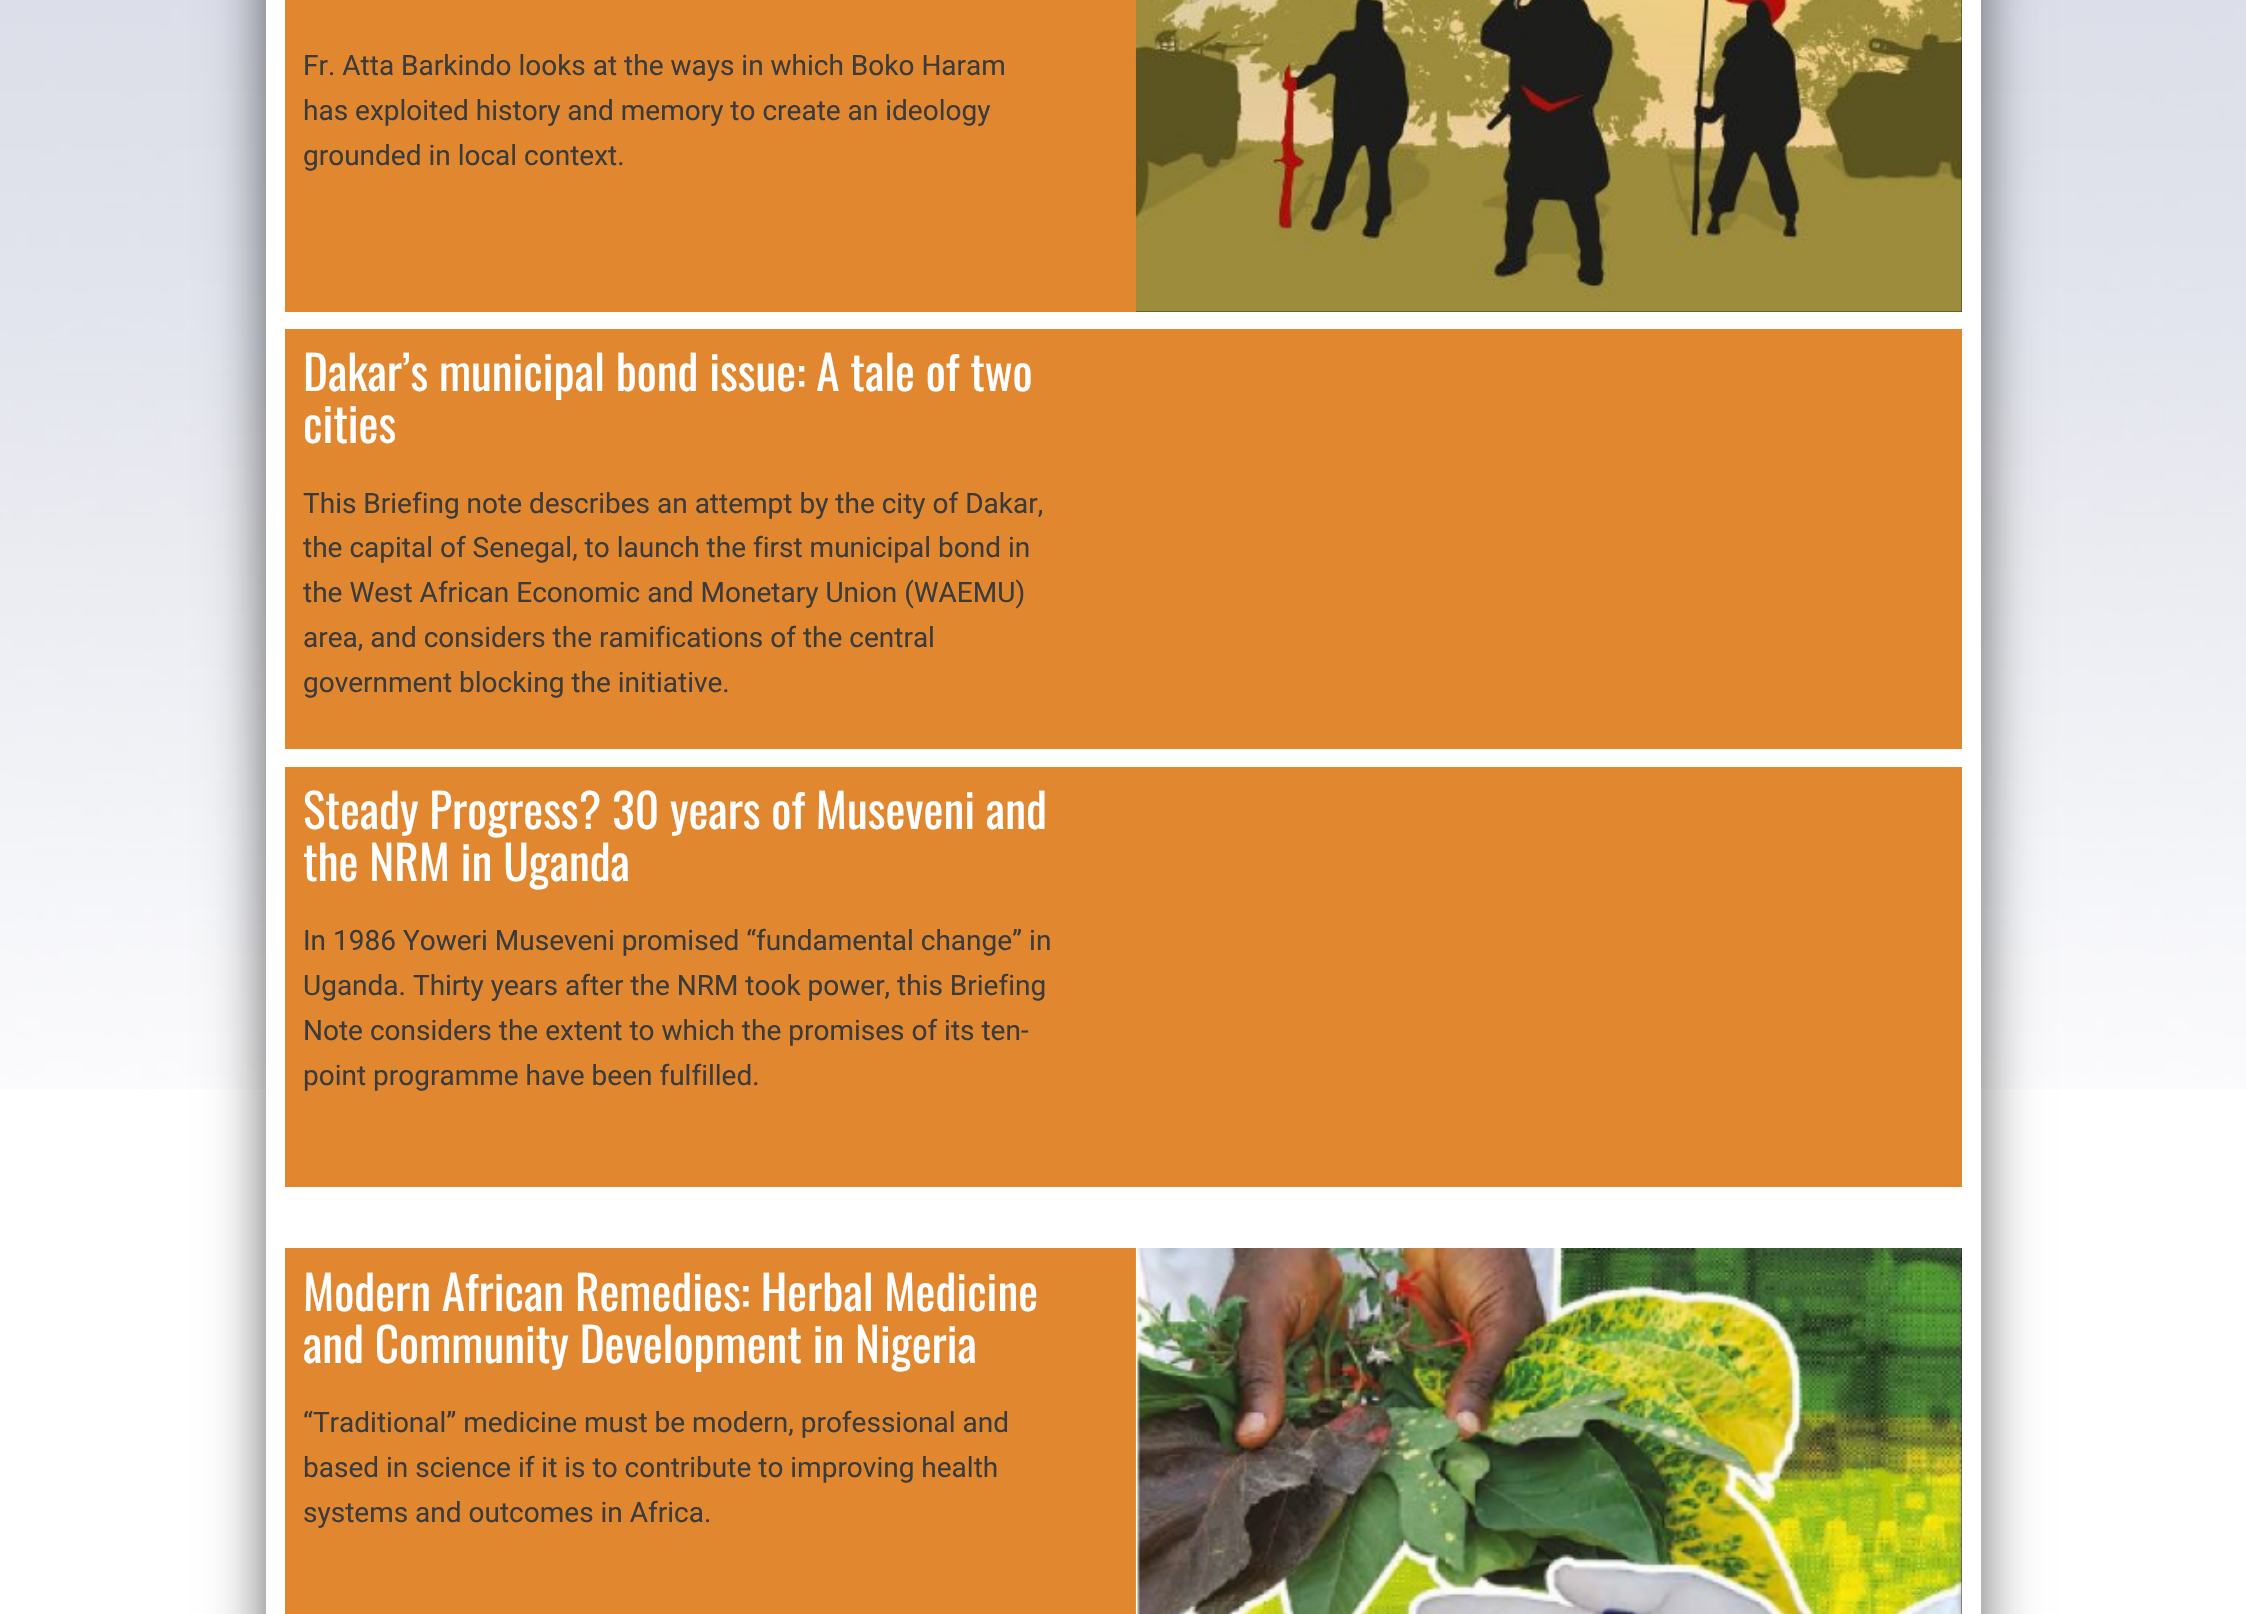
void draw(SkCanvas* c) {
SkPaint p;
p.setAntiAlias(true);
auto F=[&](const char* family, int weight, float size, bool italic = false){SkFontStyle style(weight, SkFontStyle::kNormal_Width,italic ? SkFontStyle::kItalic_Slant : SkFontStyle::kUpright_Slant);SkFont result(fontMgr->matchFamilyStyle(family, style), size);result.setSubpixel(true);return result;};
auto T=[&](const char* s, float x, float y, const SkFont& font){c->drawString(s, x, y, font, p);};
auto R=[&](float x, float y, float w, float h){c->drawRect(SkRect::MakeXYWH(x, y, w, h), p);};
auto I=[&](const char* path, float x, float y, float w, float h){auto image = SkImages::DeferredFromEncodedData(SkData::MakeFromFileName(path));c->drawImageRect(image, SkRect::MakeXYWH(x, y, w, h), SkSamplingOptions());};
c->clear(0xffffffff);
I("1.png",0,0,2246,1089);
p.setColor(0x99000000);
p.setMaskFilter(SkMaskFilter::MakeBlur(kNormal_SkBlurStyle, 26));
c->drawRect(SkRect::MakeXYWH(266,-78,1715,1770),p);
p.setMaskFilter(nullptr);
p.setColor(0xffffffff);
R(266,0,1715,1614);
p.setColor(0xffe18730);
R(285,0,851,312);
auto f1 = F("Roboto",400,28);
p.setColor(0xff3b3b3b);
T("Fr. Atta Barkindo looks at the ways in which Boko Haram",303,75,f1);
T("has exploited history and memory to create an ideology",303,120,f1);
T("grounded in local context.",303,165,f1);
p.setColor(0xff30231d);
R(1136,0,826,312);
I("2.png",1135,0,827,312);
p.setColor(0xffe18730);
R(285,329,1677,420);
auto f2 = F("Oswald",400,47.25);
p.setColor(0xffffffff);
T("Dakar’s municipal bond issue: A tale of two",303,391,f2);
T("cities",303,443,f2);
p.setColor(0xff3b3b3b);
T("This Briefing note describes an attempt by the city of Dakar,",303,513,f1);
T("the capital of Senegal, to launch the first municipal bond in",303,557,f1);
T("the West African Economic and Monetary Union (WAEMU)",303,602,f1);
T("area, and considers the ramifications of the central",303,647,f1);
T("government blocking the initiative.",303,692,f1);
p.setColor(0xffe18730);
R(285,767,1677,420);
p.setColor(0xffffffff);
T("Steady Progress? 30 years of Museveni and",303,829,f2);
T("the NRM in Uganda",303,881,f2);
p.setColor(0xff3b3b3b);
T("In 1986 Yoweri Museveni promised “fundamental change” in",303,950,f1);
T("Uganda. Thirty years after the NRM took power, this Briefing",303,995,f1);
T("Note considers the extent to which the promises of its ten-",303,1040,f1);
T("point programme have been fulfilled.",303,1085,f1);
p.setColor(0xffe18730);
R(285,1248,851,366);
p.setColor(0xffffffff);
T("Modern African Remedies: Herbal Medicine",303,1311,f2);
T("and Community Development in Nigeria",303,1363,f2);
p.setColor(0xff3b3b3b);
T("“Traditional” medicine must be modern, professional and",303,1432,f1);
T("based in science if it is to contribute to improving health",303,1477,f1);
T("systems and outcomes in Africa.",303,1522,f1);
p.setColor(0xff30231d);
R(1961,1248,1,366);
I("3.png",1135,1248,827,366);
}
